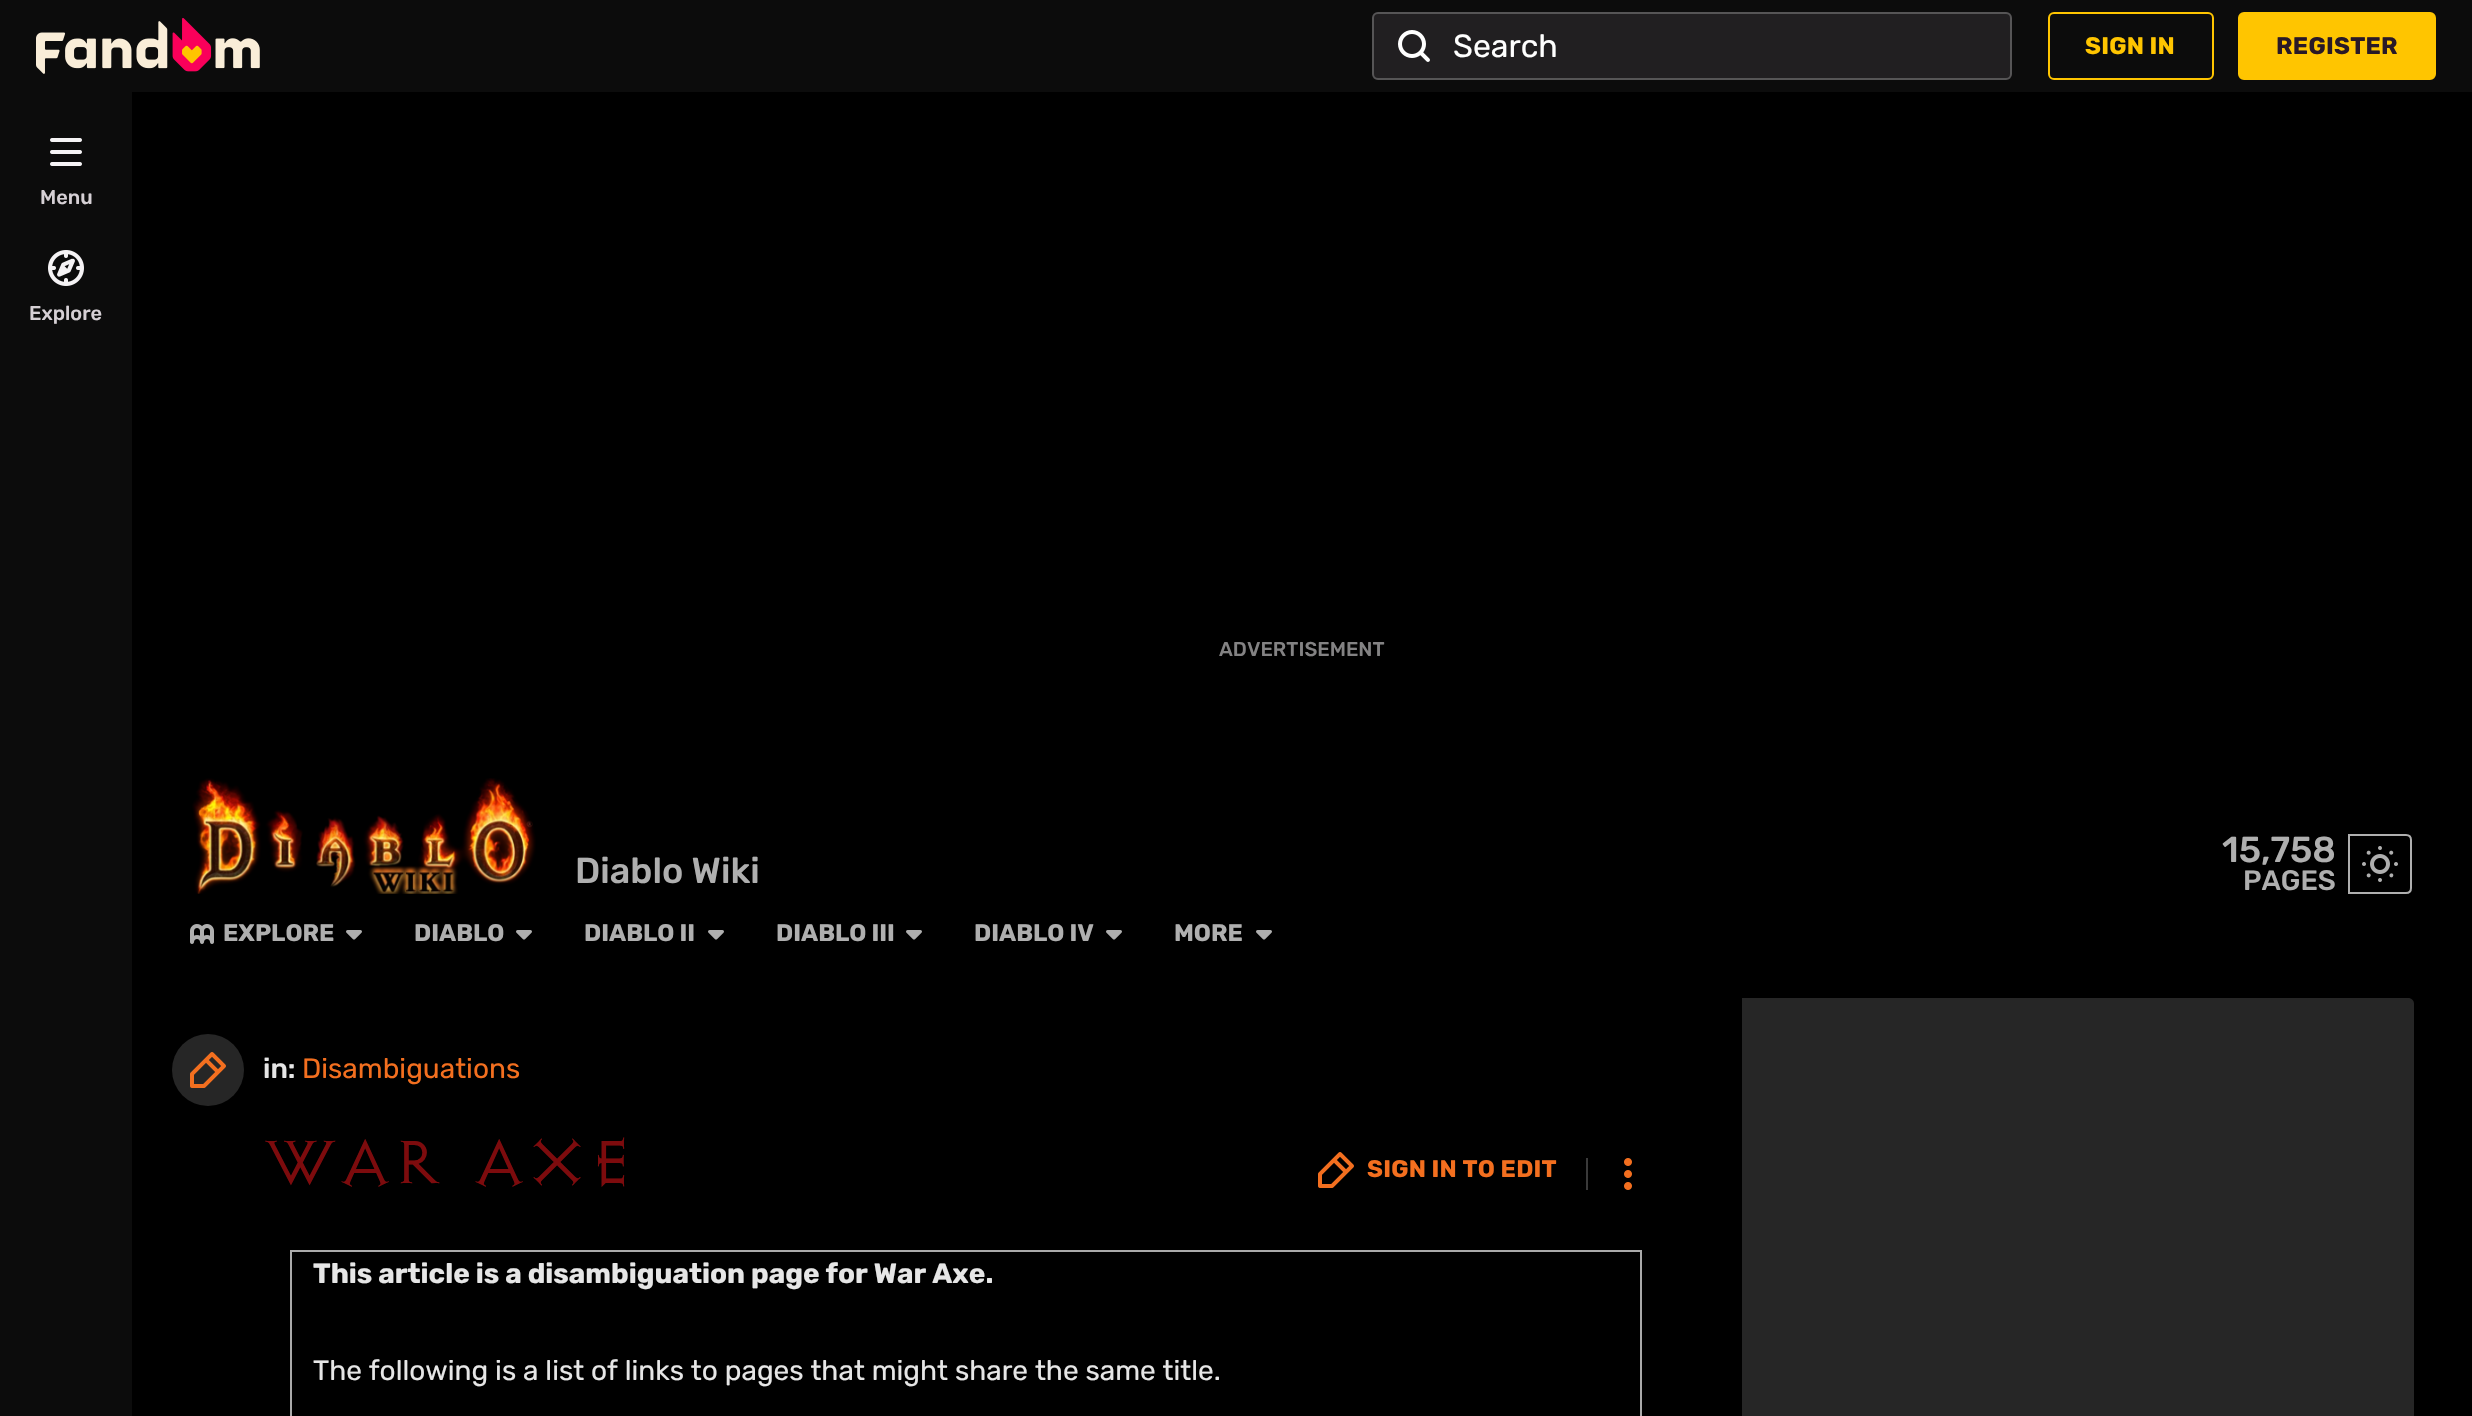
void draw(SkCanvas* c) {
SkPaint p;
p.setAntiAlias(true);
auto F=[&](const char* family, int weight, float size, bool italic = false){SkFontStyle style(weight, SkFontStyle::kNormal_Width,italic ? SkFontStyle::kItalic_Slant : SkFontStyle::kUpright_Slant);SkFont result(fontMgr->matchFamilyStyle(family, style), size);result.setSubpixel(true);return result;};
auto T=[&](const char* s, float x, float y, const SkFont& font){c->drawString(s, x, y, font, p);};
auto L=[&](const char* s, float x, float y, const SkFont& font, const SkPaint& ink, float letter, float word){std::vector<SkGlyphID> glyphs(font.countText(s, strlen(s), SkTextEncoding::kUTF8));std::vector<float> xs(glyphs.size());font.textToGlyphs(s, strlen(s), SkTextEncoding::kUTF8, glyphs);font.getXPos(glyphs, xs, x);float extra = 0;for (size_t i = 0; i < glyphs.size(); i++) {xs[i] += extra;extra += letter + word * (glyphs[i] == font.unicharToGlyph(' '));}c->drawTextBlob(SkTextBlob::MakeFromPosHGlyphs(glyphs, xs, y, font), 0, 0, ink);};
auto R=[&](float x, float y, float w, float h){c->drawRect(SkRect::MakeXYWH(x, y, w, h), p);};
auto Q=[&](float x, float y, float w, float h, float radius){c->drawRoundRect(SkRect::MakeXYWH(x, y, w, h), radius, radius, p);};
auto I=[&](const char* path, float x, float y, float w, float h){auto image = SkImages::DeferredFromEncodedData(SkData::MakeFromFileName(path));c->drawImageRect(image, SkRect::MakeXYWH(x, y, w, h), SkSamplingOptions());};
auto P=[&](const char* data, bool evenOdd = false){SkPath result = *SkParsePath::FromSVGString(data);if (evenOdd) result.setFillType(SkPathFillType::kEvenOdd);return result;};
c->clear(0xff000000);
p.setColor(0xff0c0c0c);
R(0,0,2472,92);
I("1.png",36,18,224,56);
p.setColor(0xff211f21);
Q(1372,12,640,68,6);
p.setStroke(true);
p.setStrokeWidth(2);
p.setColor(0x40f5f3f5);
c->drawRoundRect(SkRect::MakeXYWH(1373,13,638,66),5,5,p);
I("2.png",1398,30,32,32);
auto f1 = F("Rubik",400,32);
p.setStroke(false);
p.setColor(0xffffffff);
T("Search",1453,57,f1);
p.setStroke(true);
p.setColor(0xffffc500);
c->drawRoundRect(SkRect::MakeXYWH(2049,13,164,66),5,5,p);
auto f2 = F("Rubik",700,24);
p.setStroke(false);
L("SIGN IN",2085,54,f2,p,.25,0);
c->drawRoundRect(SkRect::MakeXYWH(2239,13,196,66),5,5,p);
p.setStroke(true);
c->drawRoundRect(SkRect::MakeXYWH(2239,13,196,66),5,5,p);
p.setStroke(false);
p.setColor(0xff291927);
L("REGISTER",2276,54,f2,p,.25,0);
p.setColor(0xff0c0c0c);
R(0,92,132,1324);
I("3.png",50,138,32,28);
auto f3 = F("Rubik",500,20);
p.setColor(0xffd6d0d5);
T("Menu",40,204,f3);
I("4.png",48,250,36,36);
T("Explore",29,320,f3);
p.setColor(0xff838283);
T("ADVERTISEMENT",1219,656,f3);
I("5.png",192,778,344,116);
auto f4 = F("Rubik",500,36);
p.setColor(0xffafafaf);
T("Diablo Wiki",575,883,f4);
T("15,758",2222,862,f4);
auto f5 = F("Rubik",500,28);
T("PAGES",2243,890,f5);
p.setStroke(true);
c->drawPath(P("M2349 835h57c3 0 5 2 5 5v48c0 3-2 5-5 5h-57z"),p);
I("6.png",2362,846,36,36);
I("7.png",190,924,24,20);
p.setStroke(false);
T("EXPLORE",223,941,f2);
I("8.png",346,930,16,10);
T("DIABLO",414,941,f2);
I("8.png",516,930,16,10);
T("DIABLO II",584,941,f2);
I("8.png",708,930,16,10);
T("DIABLO III",776,941,f2);
I("8.png",906,930,16,10);
T("DIABLO IV",974,941,f2);
I("8.png",1106,930,16,10);
T("MORE",1174,941,f2);
I("8.png",1256,930,16,10);
p.setColor(0xff262626);
c->drawCircle(208,1070,36,p);
I("9.png",190,1052,36,36);
p.setColor(0xffe6e6e6);
T("in:",263,1078,f5);
auto f6 = F("Rubik",400,28);
p.setColor(0xfff36f1f);
T("Disambiguations",302,1078,f6);
auto f7 = F("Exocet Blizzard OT",300,72);
p.setColor(0xff7d0b0d);
L("War Axe",263,1183,f7,p,.5,0);
I("10.png",1318,1152,36,36);
p.setColor(0xfff36f1f);
L("SIGN IN TO EDIT",1367,1177,f2,p,.25,0);
p.setColor(0xff3a3a3a);
R(1586,1158,2,32);
I("11.png",1624,1158,8,32);
p.setStroke(true);
p.setColor(0xffaaaaaa);
c->drawRect(SkRect::MakeXYWH(291,1251,1350,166),p);
auto f8 = F("Rubik",700,28);
p.setStroke(false);
p.setColor(0xffe6e6e6);
T("This article is a disambiguation page for War Axe.",313,1283,f8);
T("The following is a list of links to pages that might share the same title.",313,1380,f6);
p.setColor(0xff262626);
c->drawPath(P("M1742 998h666c3.5 0 6 2.5 6 6v412c0 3.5-2.5 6-6 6h-666z"),p);
}
